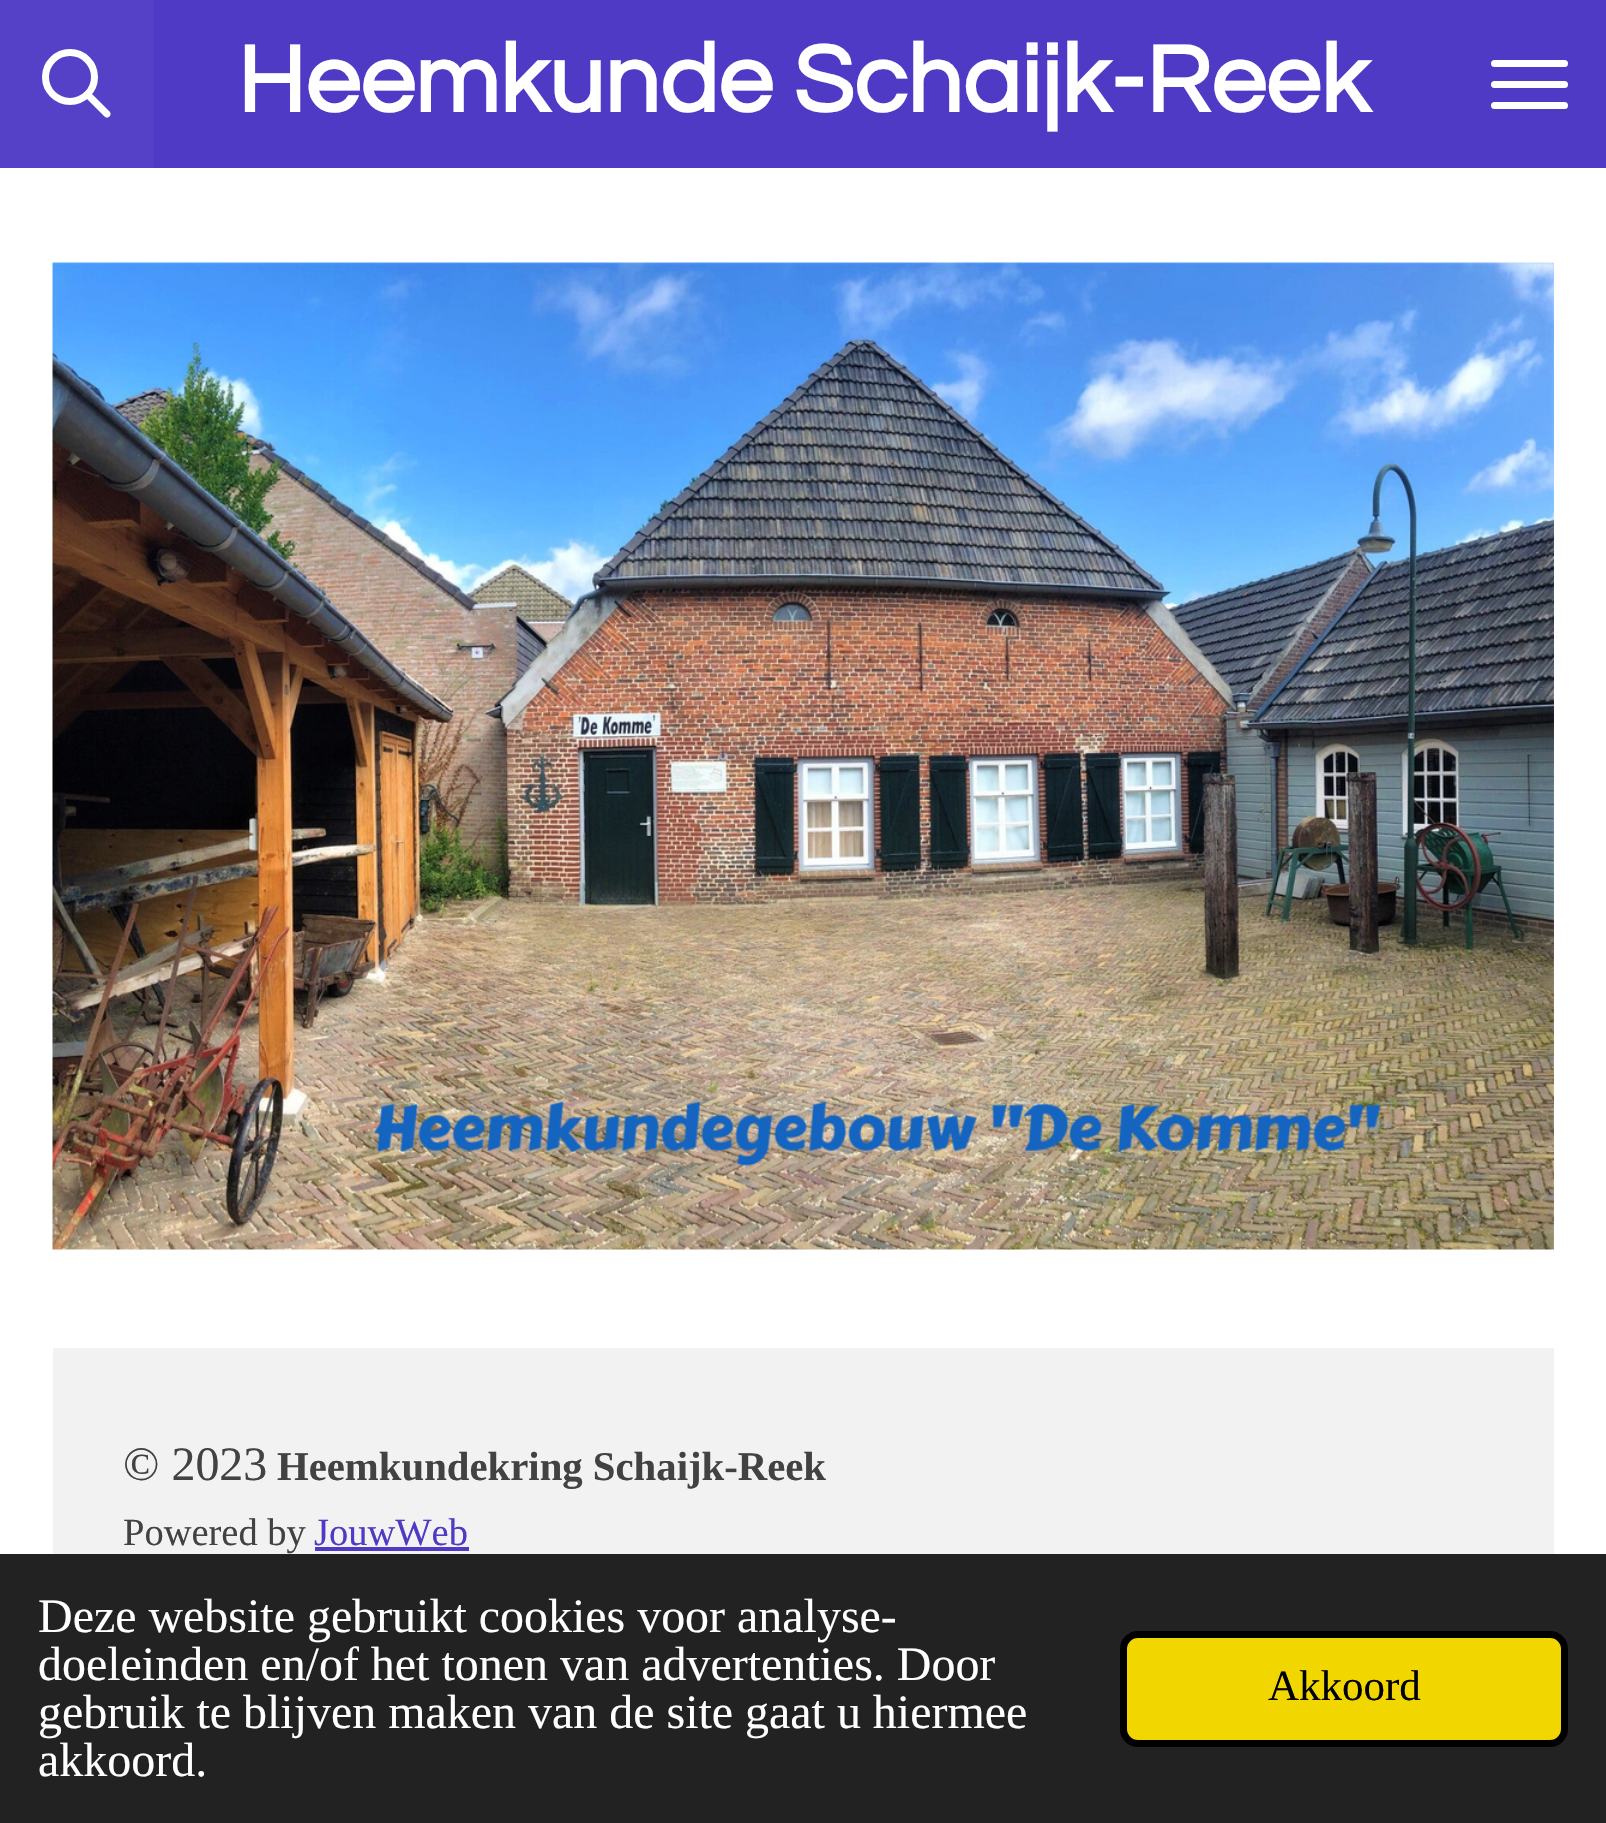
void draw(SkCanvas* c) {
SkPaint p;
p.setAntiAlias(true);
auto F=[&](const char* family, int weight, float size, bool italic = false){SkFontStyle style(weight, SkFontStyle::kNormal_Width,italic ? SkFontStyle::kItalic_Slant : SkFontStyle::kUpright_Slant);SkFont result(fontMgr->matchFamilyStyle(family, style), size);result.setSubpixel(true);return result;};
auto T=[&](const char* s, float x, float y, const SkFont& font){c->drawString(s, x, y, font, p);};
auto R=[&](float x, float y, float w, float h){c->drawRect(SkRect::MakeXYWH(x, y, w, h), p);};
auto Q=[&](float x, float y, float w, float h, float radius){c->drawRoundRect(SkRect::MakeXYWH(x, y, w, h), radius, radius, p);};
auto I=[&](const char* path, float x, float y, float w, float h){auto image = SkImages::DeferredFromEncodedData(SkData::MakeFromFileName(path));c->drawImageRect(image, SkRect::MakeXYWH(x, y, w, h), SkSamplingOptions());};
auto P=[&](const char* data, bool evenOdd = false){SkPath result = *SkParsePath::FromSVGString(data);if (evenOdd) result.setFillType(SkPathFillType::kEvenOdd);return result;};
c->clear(0xffffffff);
p.setColor(0xff5541c7);
R(0,0,154,168);
p.setStroke(true);
p.setStrokeWidth(7);
p.setColor(0xffffffff);
c->drawCircle(70,77,24.5,p);
p.setStroke(false);
c->drawPath(P("M87.5 89.5l22 22c1.5 1.5 1.5 3.5 0 5c-1.5 1.5-3.5 1.5-5 0l-22-22z"),p);
p.setColor(0xff4e3ac4);
R(154,0,1452,168);
p.setColor(0xffffffff);
Q(1491,81,77,7,3.5);
Q(1491,60,77,7,3.5);
Q(1491,102,77,7,3.5);
auto f1 = F("Questrial",700,98);
T("Heemkunde Schaijk-Reek",237,112,f1);
I("1.png",52,262,1502,988);
p.setColor(0xfff2f2f2);
R(53,1348,1501,206);
auto f2 = F("Liberation Serif",400,47.95);
p.setColor(0xff424242);
T("© 2023",123,1480,f2);
auto f3 = F("Liberation Serif",700,40.75);
T("Heemkundekring Schaijk-Reek",277,1480,f3);
auto f4 = F("Liberation Serif",400,38.5);
T("Powered by",123,1545,f4);
p.setColor(0xff4e3ac4);
T("JouwWeb",314,1545,f4);
R(315,1547,154,4);
p.setColor(0xff222222);
R(0,1554,1606,269);
p.setColor(0xffffffff);
T("Deze website gebruikt cookies voor analyse-",38,1632,f2);
T("doeleinden en/of het tonen van advertenties. Door",38,1680,f2);
T("gebruik te blijven maken van de site gaat u hiermee",38,1728,f2);
T("akkoord.",38,1776,f2);
p.setColor(0xfff1d600);
c->drawRoundRect(SkRect::MakeXYWH(1123.5,1634.5,441,109),14.5,14.5,p);
p.setStroke(true);
p.setColor(0xff000000);
c->drawRoundRect(SkRect::MakeXYWH(1123.5,1634.5,441,109),14.5,14.5,p);
auto f5 = F("Liberation Serif",400,43);
p.setStroke(false);
T("Akkoord",1268,1700,f5);
}
